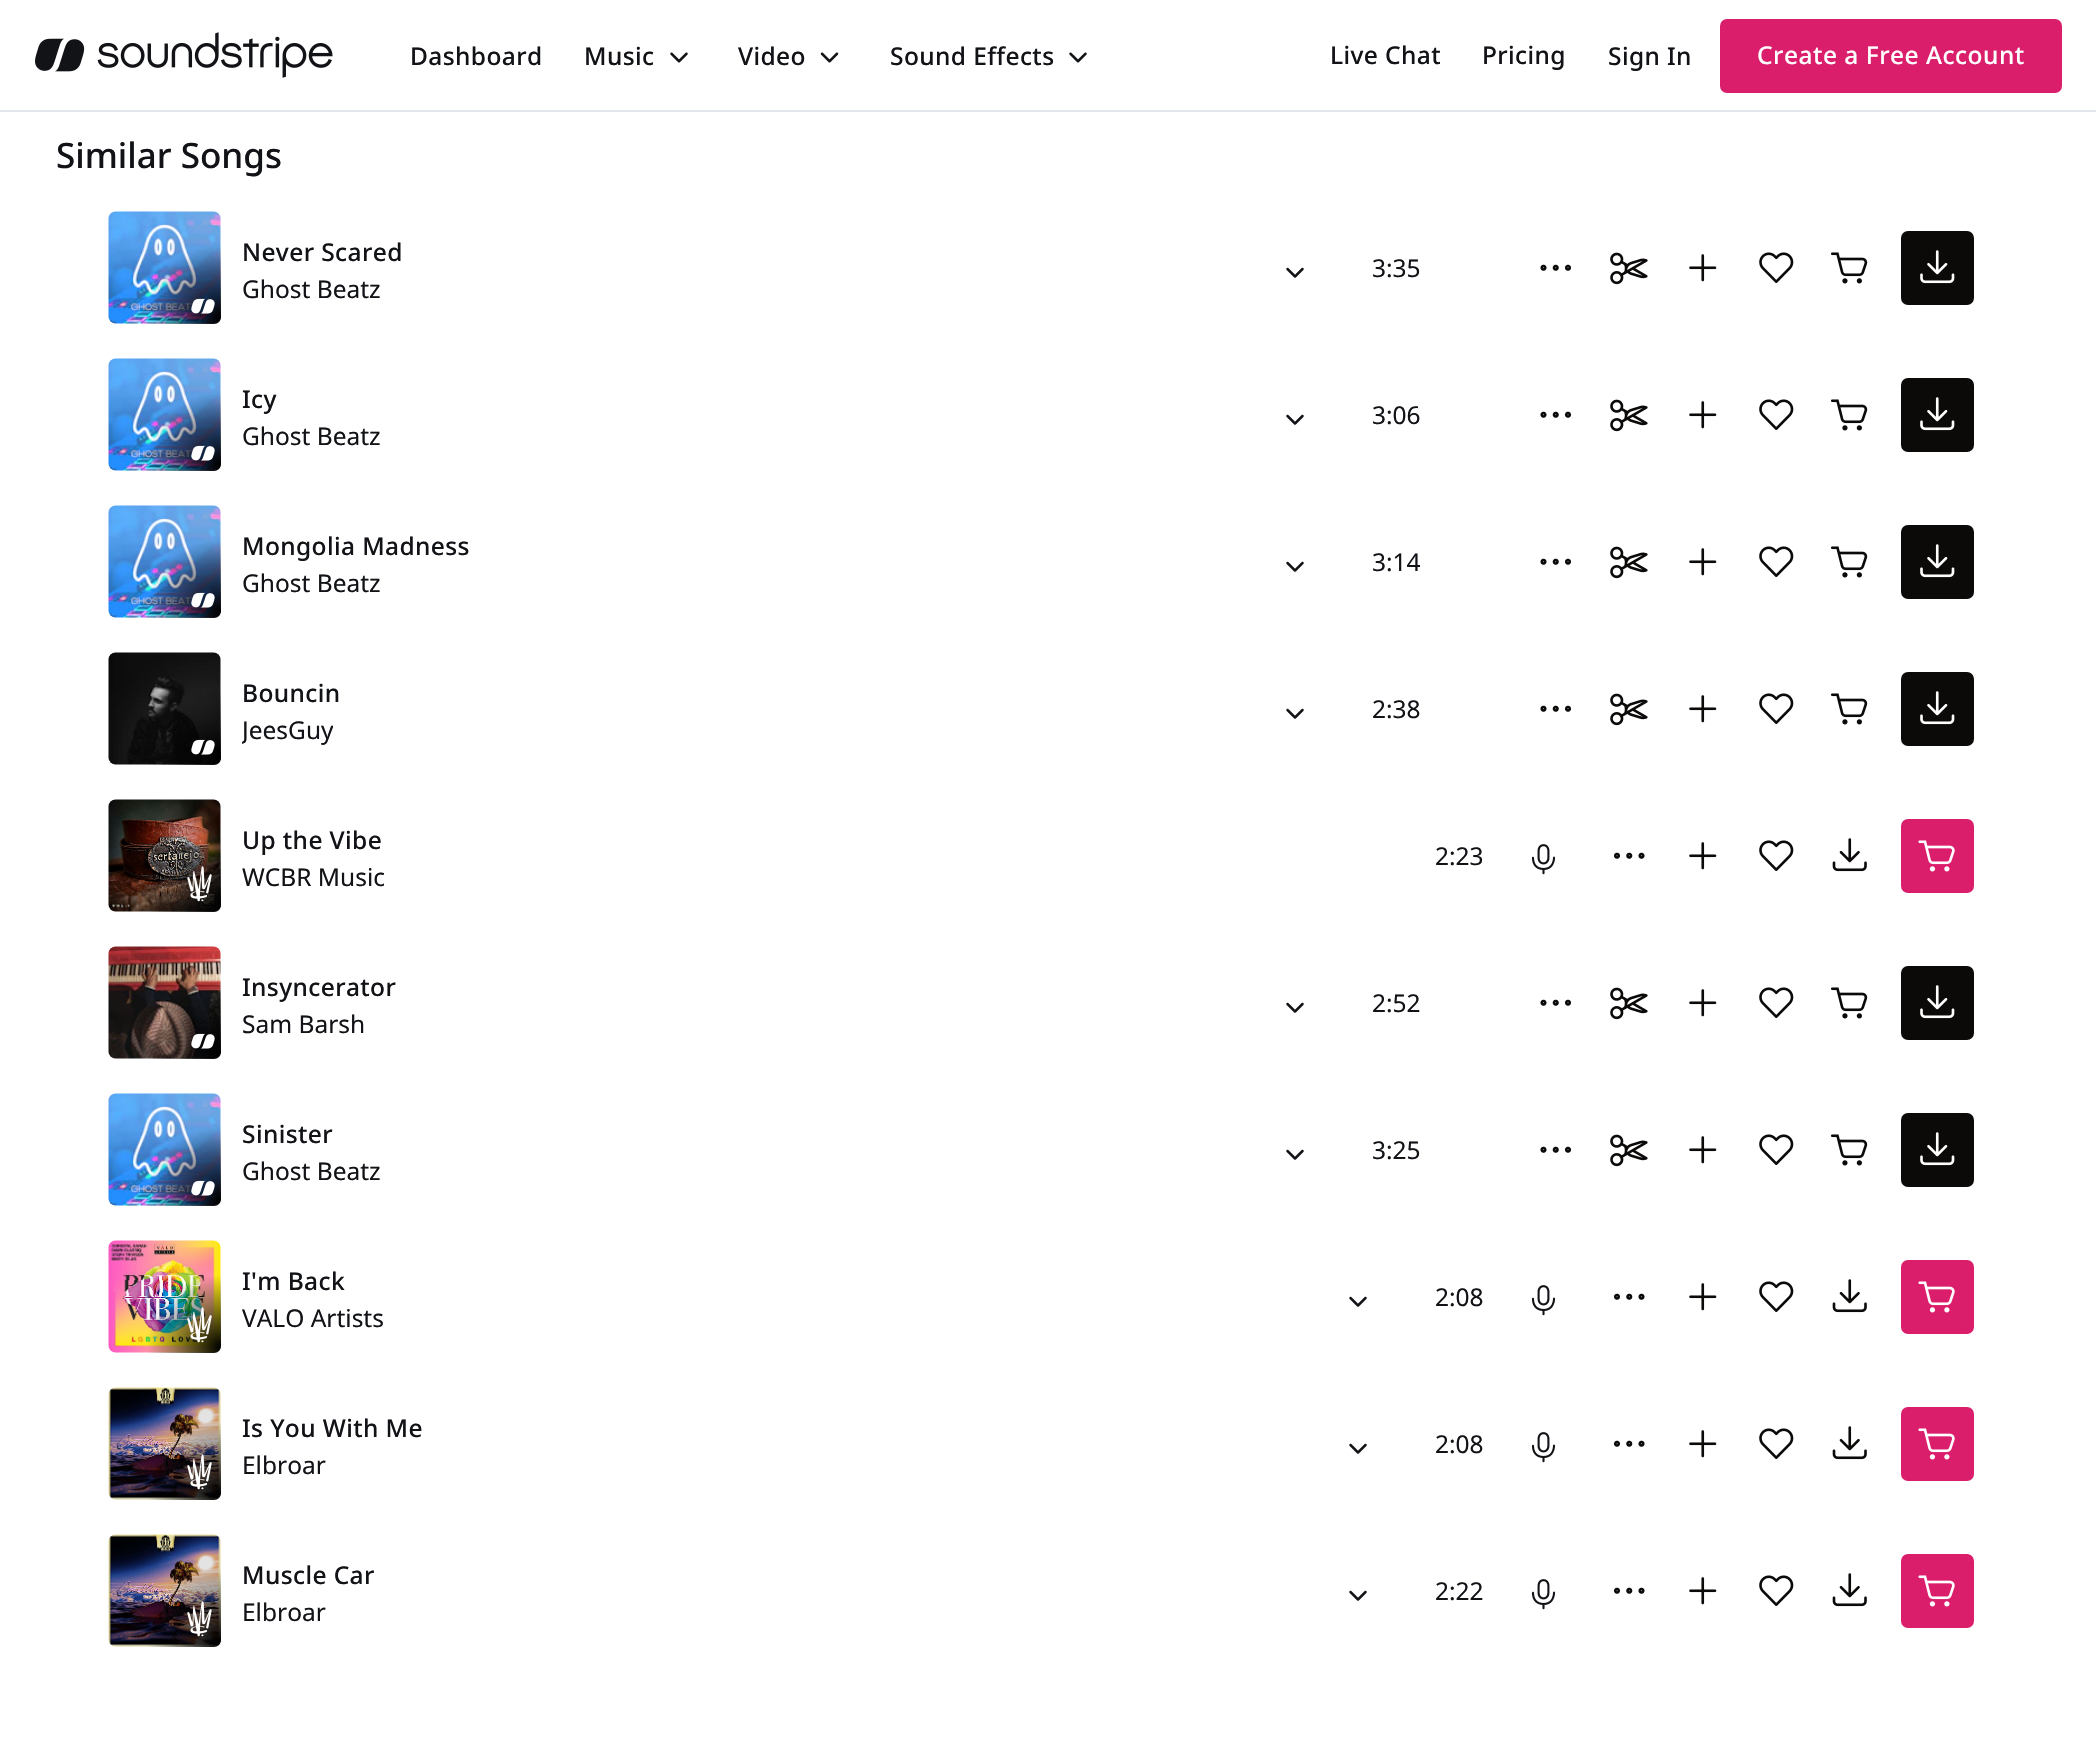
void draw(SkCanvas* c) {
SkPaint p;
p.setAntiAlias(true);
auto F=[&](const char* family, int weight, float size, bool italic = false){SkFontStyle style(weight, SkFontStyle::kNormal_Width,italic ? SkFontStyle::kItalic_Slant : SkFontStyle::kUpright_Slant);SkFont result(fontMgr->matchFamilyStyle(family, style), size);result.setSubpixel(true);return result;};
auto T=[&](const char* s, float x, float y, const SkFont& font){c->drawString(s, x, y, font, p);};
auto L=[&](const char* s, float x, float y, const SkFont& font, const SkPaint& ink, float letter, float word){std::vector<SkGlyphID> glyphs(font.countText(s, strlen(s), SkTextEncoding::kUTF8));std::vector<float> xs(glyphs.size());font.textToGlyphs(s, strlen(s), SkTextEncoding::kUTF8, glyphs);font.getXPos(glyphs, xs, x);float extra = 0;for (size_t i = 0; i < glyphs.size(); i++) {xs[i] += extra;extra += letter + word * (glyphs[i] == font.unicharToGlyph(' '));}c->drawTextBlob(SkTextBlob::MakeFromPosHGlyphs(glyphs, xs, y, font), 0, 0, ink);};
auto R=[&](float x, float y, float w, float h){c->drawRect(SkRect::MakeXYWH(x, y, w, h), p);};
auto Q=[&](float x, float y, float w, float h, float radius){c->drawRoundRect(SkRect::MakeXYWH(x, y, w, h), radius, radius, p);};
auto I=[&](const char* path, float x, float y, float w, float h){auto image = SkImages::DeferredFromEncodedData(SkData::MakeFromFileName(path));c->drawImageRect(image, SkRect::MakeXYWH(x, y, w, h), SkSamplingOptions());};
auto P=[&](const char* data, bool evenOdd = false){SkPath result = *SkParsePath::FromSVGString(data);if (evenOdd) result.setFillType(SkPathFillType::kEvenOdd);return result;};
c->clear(0xffffffff);
p.setColor(0xffe3e6ed);
R(0,110,2096,2);
I("1.png",35,32,298,46);
auto f1 = F("Noto Sans",500,24.5);
p.setColor(0xff111317);
L("Dashboard",410,65,f1,p,.4,0);
L("Music",584,65,f1,p,.4,0);
I("2.png",670,52,18,11);
L("Video",738,65,f1,p,.4,0);
I("3.png",820,52,19,11);
L("Sound Effects",890,65,f1,p,.4,0);
I("2.png",1069,52,18,11);
L("Live Chat",1330,64,f1,p,.4,0);
L("Pricing",1482,64,f1,p,.4,0);
L("Sign In",1608,65,f1,p,.4,0);
p.setColor(0xffdb1e6b);
Q(1720,19,342,74,7);
p.setColor(0xffffffff);
L("Create a Free Account",1757,64,f1,p,.5,0);
auto f2 = F("Noto Sans",500,35);
p.setColor(0xff111317);
T("Similar Songs",56,168,f2);
I("4.png",108,211,113,113);
{
const SkColor colors[] = {0xff000000,0x00000000};
const float stops[] = {0,.6};
SkMatrix m = SkMatrix::Translate(220,318).preScale(122,120);
p.setShader(SkGradientShader::MakeRadial({0, 0}, 1, colors, stops, 2, SkTileMode::kClamp, 0, &m));
p.setAlpha(255);
}
c->drawPath(P("M151 212h70v105c0 4-3 7-7 7h-105v-70c0-23 19-42 42-42z"),p);
I("5.png",191,298,24,16);
p.setShader(nullptr);
p.setColor(0xff111317);
L("Never Scared",242,261,f1,p,.4,0);
auto f3 = F("Noto Sans",400,24.5);
T("Ghost Beatz",242,298,f3);
I("6.png",1286,267,18,11);
T("3:35",1372,277,f3);
I("7.png",1540,264,31,7);
I("8.png",1610,252,38,33);
I("9.png",1689,254,28,28);
I("10.png",1759,252,35,31);
I("11.png",1831,252,37,32);
p.setColor(0xff0c0a09);
Q(1901,231,73,74,7);
I("12.png",1920,250,35,34);
I("13.png",108,358,113,113);
{
const SkColor colors[] = {0xff000000,0x00000000};
const float stops[] = {0,.6};
SkMatrix m = SkMatrix::Translate(220,465).preScale(122,120);
p.setShader(SkGradientShader::MakeRadial({0, 0}, 1, colors, stops, 2, SkTileMode::kClamp, 0, &m));
p.setAlpha(255);
}
c->drawPath(P("M151 359h70v105c0 4-3 7-7 7h-105v-70c0-23 19-42 42-42z"),p);
I("14.png",191,445,24,16);
p.setShader(nullptr);
p.setColor(0xff111317);
L("Icy",242,408,f1,p,.4,0);
T("Ghost Beatz",242,445,f3);
I("6.png",1286,414,18,11);
T("3:06",1372,424,f3);
I("7.png",1540,411,31,7);
I("8.png",1610,399,38,33);
I("9.png",1689,401,28,28);
I("10.png",1759,399,35,31);
I("11.png",1831,399,37,32);
p.setColor(0xff0c0a09);
Q(1901,378,73,74,7);
I("12.png",1920,397,35,34);
I("13.png",108,505,113,113);
{
const SkColor colors[] = {0xff000000,0x00000000};
const float stops[] = {0,.6};
SkMatrix m = SkMatrix::Translate(220,612).preScale(122,120);
p.setShader(SkGradientShader::MakeRadial({0, 0}, 1, colors, stops, 2, SkTileMode::kClamp, 0, &m));
p.setAlpha(255);
}
c->drawPath(P("M151 506h70v105c0 4-3 7-7 7h-105v-70c0-23 19-42 42-42z"),p);
I("14.png",191,592,24,16);
p.setShader(nullptr);
p.setColor(0xff111317);
L("Mongolia Madness",242,555,f1,p,.4,0);
T("Ghost Beatz",242,592,f3);
I("6.png",1286,561,18,11);
T("3:14",1372,571,f3);
I("7.png",1540,558,31,7);
I("8.png",1610,546,38,33);
I("9.png",1689,548,28,28);
I("10.png",1759,546,35,31);
I("11.png",1831,546,37,32);
p.setColor(0xff0c0a09);
Q(1901,525,73,74,7);
I("12.png",1920,544,35,34);
I("15.png",108,652,113,113);
{
const SkColor colors[] = {0xff000000,0x00000000};
const float stops[] = {0,.6};
SkMatrix m = SkMatrix::Translate(220,759).preScale(122,120);
p.setShader(SkGradientShader::MakeRadial({0, 0}, 1, colors, stops, 2, SkTileMode::kClamp, 0, &m));
p.setAlpha(255);
}
c->drawPath(P("M151 653h70v105c0 4-3 7-7 7h-105v-70c0-23 19-42 42-42z"),p);
I("16.png",191,739,24,16);
p.setShader(nullptr);
p.setColor(0xff111317);
L("Bouncin",242,702,f1,p,.4,0);
c->save();
c->clipRect(SkRect::MakeXYWH(242,712,91,35));
T("JeesGuy",242,739,f3);
c->restore();
I("6.png",1286,708,18,11);
T("2:38",1372,718,f3);
I("7.png",1540,705,31,7);
I("8.png",1610,693,38,33);
I("9.png",1689,695,28,28);
I("10.png",1759,693,35,31);
I("11.png",1831,693,37,32);
p.setColor(0xff0c0a09);
Q(1901,672,73,74,7);
I("12.png",1920,691,35,34);
I("17.png",108,799,113,113);
{
const SkColor colors[] = {0xff000000,0x00000000};
const float stops[] = {0,.6};
SkMatrix m = SkMatrix::Translate(220,906).preScale(122,120);
p.setShader(SkGradientShader::MakeRadial({0, 0}, 1, colors, stops, 2, SkTileMode::kClamp, 0, &m));
p.setAlpha(255);
}
c->drawPath(P("M151 800h70v105c0 4-3 7-7 7h-105v-70c0-23 19-42 42-42z"),p);
I("18.png",187,866,25,36);
p.setShader(nullptr);
p.setColor(0xff111317);
L("Up the Vibe",242,849,f1,p,.4,0);
T("WCBR Music",242,886,f3);
T("2:23",1435,865,f3);
I("19.png",1531,844,25,31);
I("20.png",1614,852,31,7);
I("9.png",1689,842,28,28);
I("10.png",1759,840,35,31);
I("21.png",1832,838,35,34);
p.setColor(0xffdb1e6b);
Q(1901,819,73,74,7);
I("22.png",1918,840,37,32);
I("23.png",108,946,113,113);
{
const SkColor colors[] = {0xff000000,0x00000000};
const float stops[] = {0,.6};
SkMatrix m = SkMatrix::Translate(220,1053).preScale(122,120);
p.setShader(SkGradientShader::MakeRadial({0, 0}, 1, colors, stops, 2, SkTileMode::kClamp, 0, &m));
p.setAlpha(255);
}
c->drawPath(P("M151 947h70v105c0 4-3 7-7 7h-105v-70c0-23 19-42 42-42z"),p);
I("24.png",191,1033,24,16);
p.setShader(nullptr);
p.setColor(0xff111317);
L("Insyncerator",242,996,f1,p,.4,0);
T("Sam Barsh",242,1033,f3);
I("6.png",1286,1002,18,11);
T("2:52",1372,1012,f3);
I("7.png",1540,999,31,7);
I("8.png",1610,987,38,33);
I("9.png",1689,989,28,28);
I("10.png",1759,987,35,31);
I("11.png",1831,987,37,32);
p.setColor(0xff0c0a09);
Q(1901,966,73,74,7);
I("12.png",1920,985,35,34);
I("13.png",108,1093,113,113);
{
const SkColor colors[] = {0xff000000,0x00000000};
const float stops[] = {0,.6};
SkMatrix m = SkMatrix::Translate(220,1200).preScale(122,120);
p.setShader(SkGradientShader::MakeRadial({0, 0}, 1, colors, stops, 2, SkTileMode::kClamp, 0, &m));
p.setAlpha(255);
}
c->drawPath(P("M151 1094h70v105c0 4-3 7-7 7h-105v-70c0-23 19-42 42-42z"),p);
I("14.png",191,1180,24,16);
p.setShader(nullptr);
p.setColor(0xff111317);
L("Sinister",242,1143,f1,p,.4,0);
T("Ghost Beatz",242,1180,f3);
I("6.png",1286,1149,18,11);
T("3:25",1372,1159,f3);
I("7.png",1540,1146,31,7);
I("8.png",1610,1134,38,33);
I("9.png",1689,1136,28,28);
I("10.png",1759,1134,35,31);
I("11.png",1831,1134,37,32);
p.setColor(0xff0c0a09);
Q(1901,1113,73,74,7);
I("12.png",1920,1132,35,34);
I("25.png",108,1240,113,113);
{
const SkColor colors[] = {0xff000000,0x00000000};
const float stops[] = {0,.6};
SkMatrix m = SkMatrix::Translate(220,1347).preScale(122,120);
p.setShader(SkGradientShader::MakeRadial({0, 0}, 1, colors, stops, 2, SkTileMode::kClamp, 0, &m));
p.setAlpha(255);
}
c->drawPath(P("M151 1241h70v105c0 4-3 7-7 7h-105v-70c0-23 19-42 42-42z"),p);
I("26.png",187,1307,25,36);
p.setShader(nullptr);
p.setColor(0xff111317);
L("I'm Back",242,1290,f1,p,.4,0);
T("VALO Artists",242,1327,f3);
I("6.png",1349,1296,18,11);
T("2:08",1435,1306,f3);
I("19.png",1531,1285,25,31);
I("20.png",1614,1293,31,7);
I("9.png",1689,1283,28,28);
I("10.png",1759,1281,35,31);
I("21.png",1832,1279,35,34);
p.setColor(0xffdb1e6b);
Q(1901,1260,73,74,7);
I("22.png",1918,1281,37,32);
I("27.png",108,1387,113,113);
{
const SkColor colors[] = {0xff000000,0x00000000};
const float stops[] = {0,.6};
SkMatrix m = SkMatrix::Translate(220,1494).preScale(122,120);
p.setShader(SkGradientShader::MakeRadial({0, 0}, 1, colors, stops, 2, SkTileMode::kClamp, 0, &m));
p.setAlpha(255);
}
c->drawPath(P("M151 1388h70v105c0 4-3 7-7 7h-105v-70c0-23 19-42 42-42z"),p);
I("28.png",187,1454,25,36);
p.setShader(nullptr);
p.setColor(0xff111317);
L("Is You With Me",242,1437,f1,p,.4,0);
T("Elbroar",242,1474,f3);
I("6.png",1349,1443,18,11);
T("2:08",1435,1453,f3);
I("19.png",1531,1432,25,31);
I("20.png",1614,1440,31,7);
I("9.png",1689,1430,28,28);
I("10.png",1759,1428,35,31);
I("21.png",1832,1426,35,34);
p.setColor(0xffdb1e6b);
Q(1901,1407,73,74,7);
I("22.png",1918,1428,37,32);
I("29.png",108,1534,113,113);
{
const SkColor colors[] = {0xff000000,0x00000000};
const float stops[] = {0,.6};
SkMatrix m = SkMatrix::Translate(220,1641).preScale(122,120);
p.setShader(SkGradientShader::MakeRadial({0, 0}, 1, colors, stops, 2, SkTileMode::kClamp, 0, &m));
p.setAlpha(255);
}
c->drawPath(P("M151 1535h70v105c0 4-3 7-7 7h-105v-70c0-23 19-42 42-42z"),p);
I("30.png",187,1601,25,36);
p.setShader(nullptr);
p.setColor(0xff111317);
L("Muscle Car",242,1584,f1,p,.4,0);
T("Elbroar",242,1621,f3);
I("6.png",1349,1590,18,11);
T("2:22",1435,1600,f3);
I("19.png",1531,1579,25,31);
I("20.png",1614,1587,31,7);
I("9.png",1689,1577,28,28);
I("10.png",1759,1575,35,31);
I("21.png",1832,1573,35,34);
p.setColor(0xffdb1e6b);
Q(1901,1554,73,74,7);
I("22.png",1918,1575,37,32);
}
